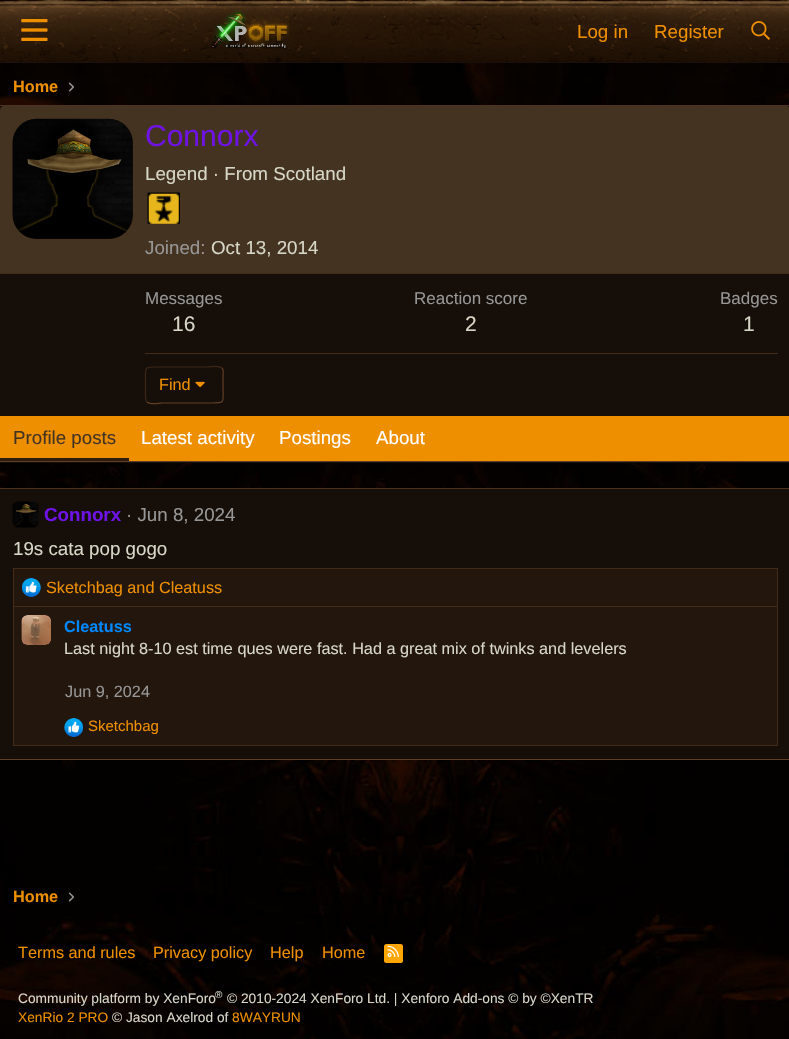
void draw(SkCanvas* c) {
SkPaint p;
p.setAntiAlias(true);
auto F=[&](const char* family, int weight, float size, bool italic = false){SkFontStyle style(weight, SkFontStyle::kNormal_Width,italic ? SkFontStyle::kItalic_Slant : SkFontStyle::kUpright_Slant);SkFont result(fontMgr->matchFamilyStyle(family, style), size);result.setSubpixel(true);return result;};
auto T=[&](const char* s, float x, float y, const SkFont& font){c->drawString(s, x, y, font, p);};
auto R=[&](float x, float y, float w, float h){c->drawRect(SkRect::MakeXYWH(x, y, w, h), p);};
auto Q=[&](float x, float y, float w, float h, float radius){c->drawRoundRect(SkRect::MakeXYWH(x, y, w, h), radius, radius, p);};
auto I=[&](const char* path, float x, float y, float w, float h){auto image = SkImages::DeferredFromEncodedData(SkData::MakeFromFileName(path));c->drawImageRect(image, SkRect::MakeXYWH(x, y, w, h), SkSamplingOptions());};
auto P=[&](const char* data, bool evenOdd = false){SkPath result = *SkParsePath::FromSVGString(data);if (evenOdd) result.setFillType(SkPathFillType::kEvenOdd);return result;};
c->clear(0xffffffff);
I("1.png",0,63,789,976);
p.setColor(0xff1b140f);
R(0,62,789,1);
I("2.png",0,0,789,63);
I("3.png",21,19,27,22);
I("4.png",211,10,79,40);
auto f1 = F("Liberation Sans",400,18.75);
p.setColor(0xffee8f00);
T("Log in",577,38,f1);
T("Register",654,38,f1);
I("5.png",751,21,19,19);
auto f2 = F("Liberation Sans",700,16.25);
T("Home",13,92,f2);
I("6.png",68,82,7,10);
p.setColor(0xff160e08);
R(0,106,789,357);
p.setColor(0xff4e321c);
R(0,105,789,1);
p.setColor(0xff613e23);
R(0,461,789,1);
p.setColor(0xff443321);
c->drawPath(P("M4 106h782c2 0 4 2 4 4v164h-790v-164c0-2 2-4 4-4z"),p);
p.setColor(0xff432b18);
R(0,273,789,1);
p.setColor(0xff160e08);
Q(13,119,120,120,24);
I("7.png",12,118,121,121);
auto f3 = F("Liberation Sans",400,30);
p.setColor(0xff6f12e6);
T("Connorx",145,146,f3);
p.setColor(0xffd7d7c8);
T("Legend · From Scotland",145,180,f1);
I("8.png",147,192,33,32);
p.setColor(0xff969696);
T("Joined:",145,254,f1);
p.setColor(0xffd7d7c8);
T("Oct 13, 2014",211,254,f1);
auto f4 = F("Liberation Sans",400,17);
p.setColor(0xff969696);
T("Messages",145,304,f4);
auto f5 = F("Liberation Sans",400,21);
p.setColor(0xffd7d7c8);
T("16",172,331,f5);
p.setColor(0xff969696);
T("Reaction score",414,304,f4);
p.setColor(0xffd7d7c8);
T("2",465,331,f5);
p.setColor(0xff969696);
T("Badges",720,304,f4);
p.setColor(0xffd7d7c8);
T("1",743,331,f5);
p.setColor(0xff432b18);
R(145,353,633,1);
p.setStroke(true);
p.setStrokeWidth(1.2);
p.setColor(0xff613e23);
c->drawPath(P("M222 368c2 2 1 5.5 1 8v9c0 19.5 3.5 18-15.5 18h-46c-.5 0-11.5 2-14.5-1"),p);
p.setColor(0xff3b2616);
c->drawPath(P("M147 402c-2-2-1.5-5.5-1.5-8v-9c0-19.5-3-18 16-18h46c.5 0 11-2 14.5 1"),p);
auto f6 = F("Liberation Sans",400,16.25);
p.setStroke(false);
p.setColor(0xffee8f00);
T("Find",159,390,f6);
I("9.png",195,381,10,7);
R(0,416,789,45);
p.setColor(0xff2c1d10);
R(0,458,129,3);
p.setColor(0xff443321);
T("Profile posts",13,444,f1);
p.setColor(0xffffffff);
T("Latest activity",141,444,f1);
T("Postings",279,444,f1);
T("About",376,444,f1);
p.setColor(0xff160e08);
R(0,489,789,270);
p.setColor(0xff4e321c);
R(0,488,789,1);
p.setColor(0xff613e23);
R(0,759,789,1);
I("10.png",12,501,27,27);
auto f7 = F("Liberation Sans",700,18.75);
p.setColor(0xff6f12e6);
T("Connorx",44,521,f7);
p.setColor(0xff969696);
T("· Jun 8, 2024",126,521,f1);
p.setColor(0xffd7d7c8);
T("19s cata pop gogo",13,555,f1);
p.setColor(0xff23160d);
R(14,569,763,37);
p.setStroke(true);
p.setStrokeWidth(1);
p.setColor(0xff432b18);
c->drawRect(SkRect::MakeXYWH(13.5,568.5,764,39),p);
I("11.png",22,578,19,19);
p.setStroke(false);
p.setColor(0xffee8f00);
T("Sketchbag and Cleatuss",46,593,f6);
p.setColor(0xff23160d);
c->drawRect(SkRect::MakeXYWH(13.5,606.5,764,139),p);
p.setStroke(true);
p.setColor(0xff432b18);
c->drawRect(SkRect::MakeXYWH(13.5,606.5,764,139),p);
p.setStroke(false);
p.setColor(0xff160e08);
Q(21,615,30,30,6);
I("12.png",21,615,30,30);
p.setColor(0xff0088ff);
T("Cleatuss",64,632,f2);
p.setColor(0xffd7d7c8);
T("Last night 8-10 est time ques were fast. Had a great mix of twinks and levelers",64,654,f6);
p.setColor(0xff969696);
T("Jun 9, 2024",65,697,f6);
I("13.png",64,718,19,19);
auto f8 = F("Liberation Sans",400,15);
p.setColor(0xffee8f00);
T("Sketchbag",88,731,f8);
T("Home",13,902,f2);
I("14.png",68,892,7,10);
T("Terms and rules",18,958,f6);
T("Privacy policy",153,958,f6);
T("Help",270,958,f6);
T("Home",322,958,f6);
p.setColor(0xffffa500);
Q(384,944,19,19,2.5);
I("15.png",387,945,12,13);
auto f9 = F("Liberation Sans",400,13.75);
p.setColor(0xffd7d7c8);
T("Community platform by XenForo",18,1003,f9);
auto f10 = F("Liberation Sans",400,10);
T("®",215,998,f10);
T("© 2010-2024 XenForo Ltd. | Xenforo Add-ons © by ©XenTR",227,1003,f9);
p.setColor(0xffee8f00);
T("XenRio 2 PRO",18,1022,f9);
p.setColor(0xffd7d7c8);
T("© Jason Axelrod of",112,1022,f9);
p.setColor(0xffee8f00);
T("8WAYRUN",232,1022,f9);
}
